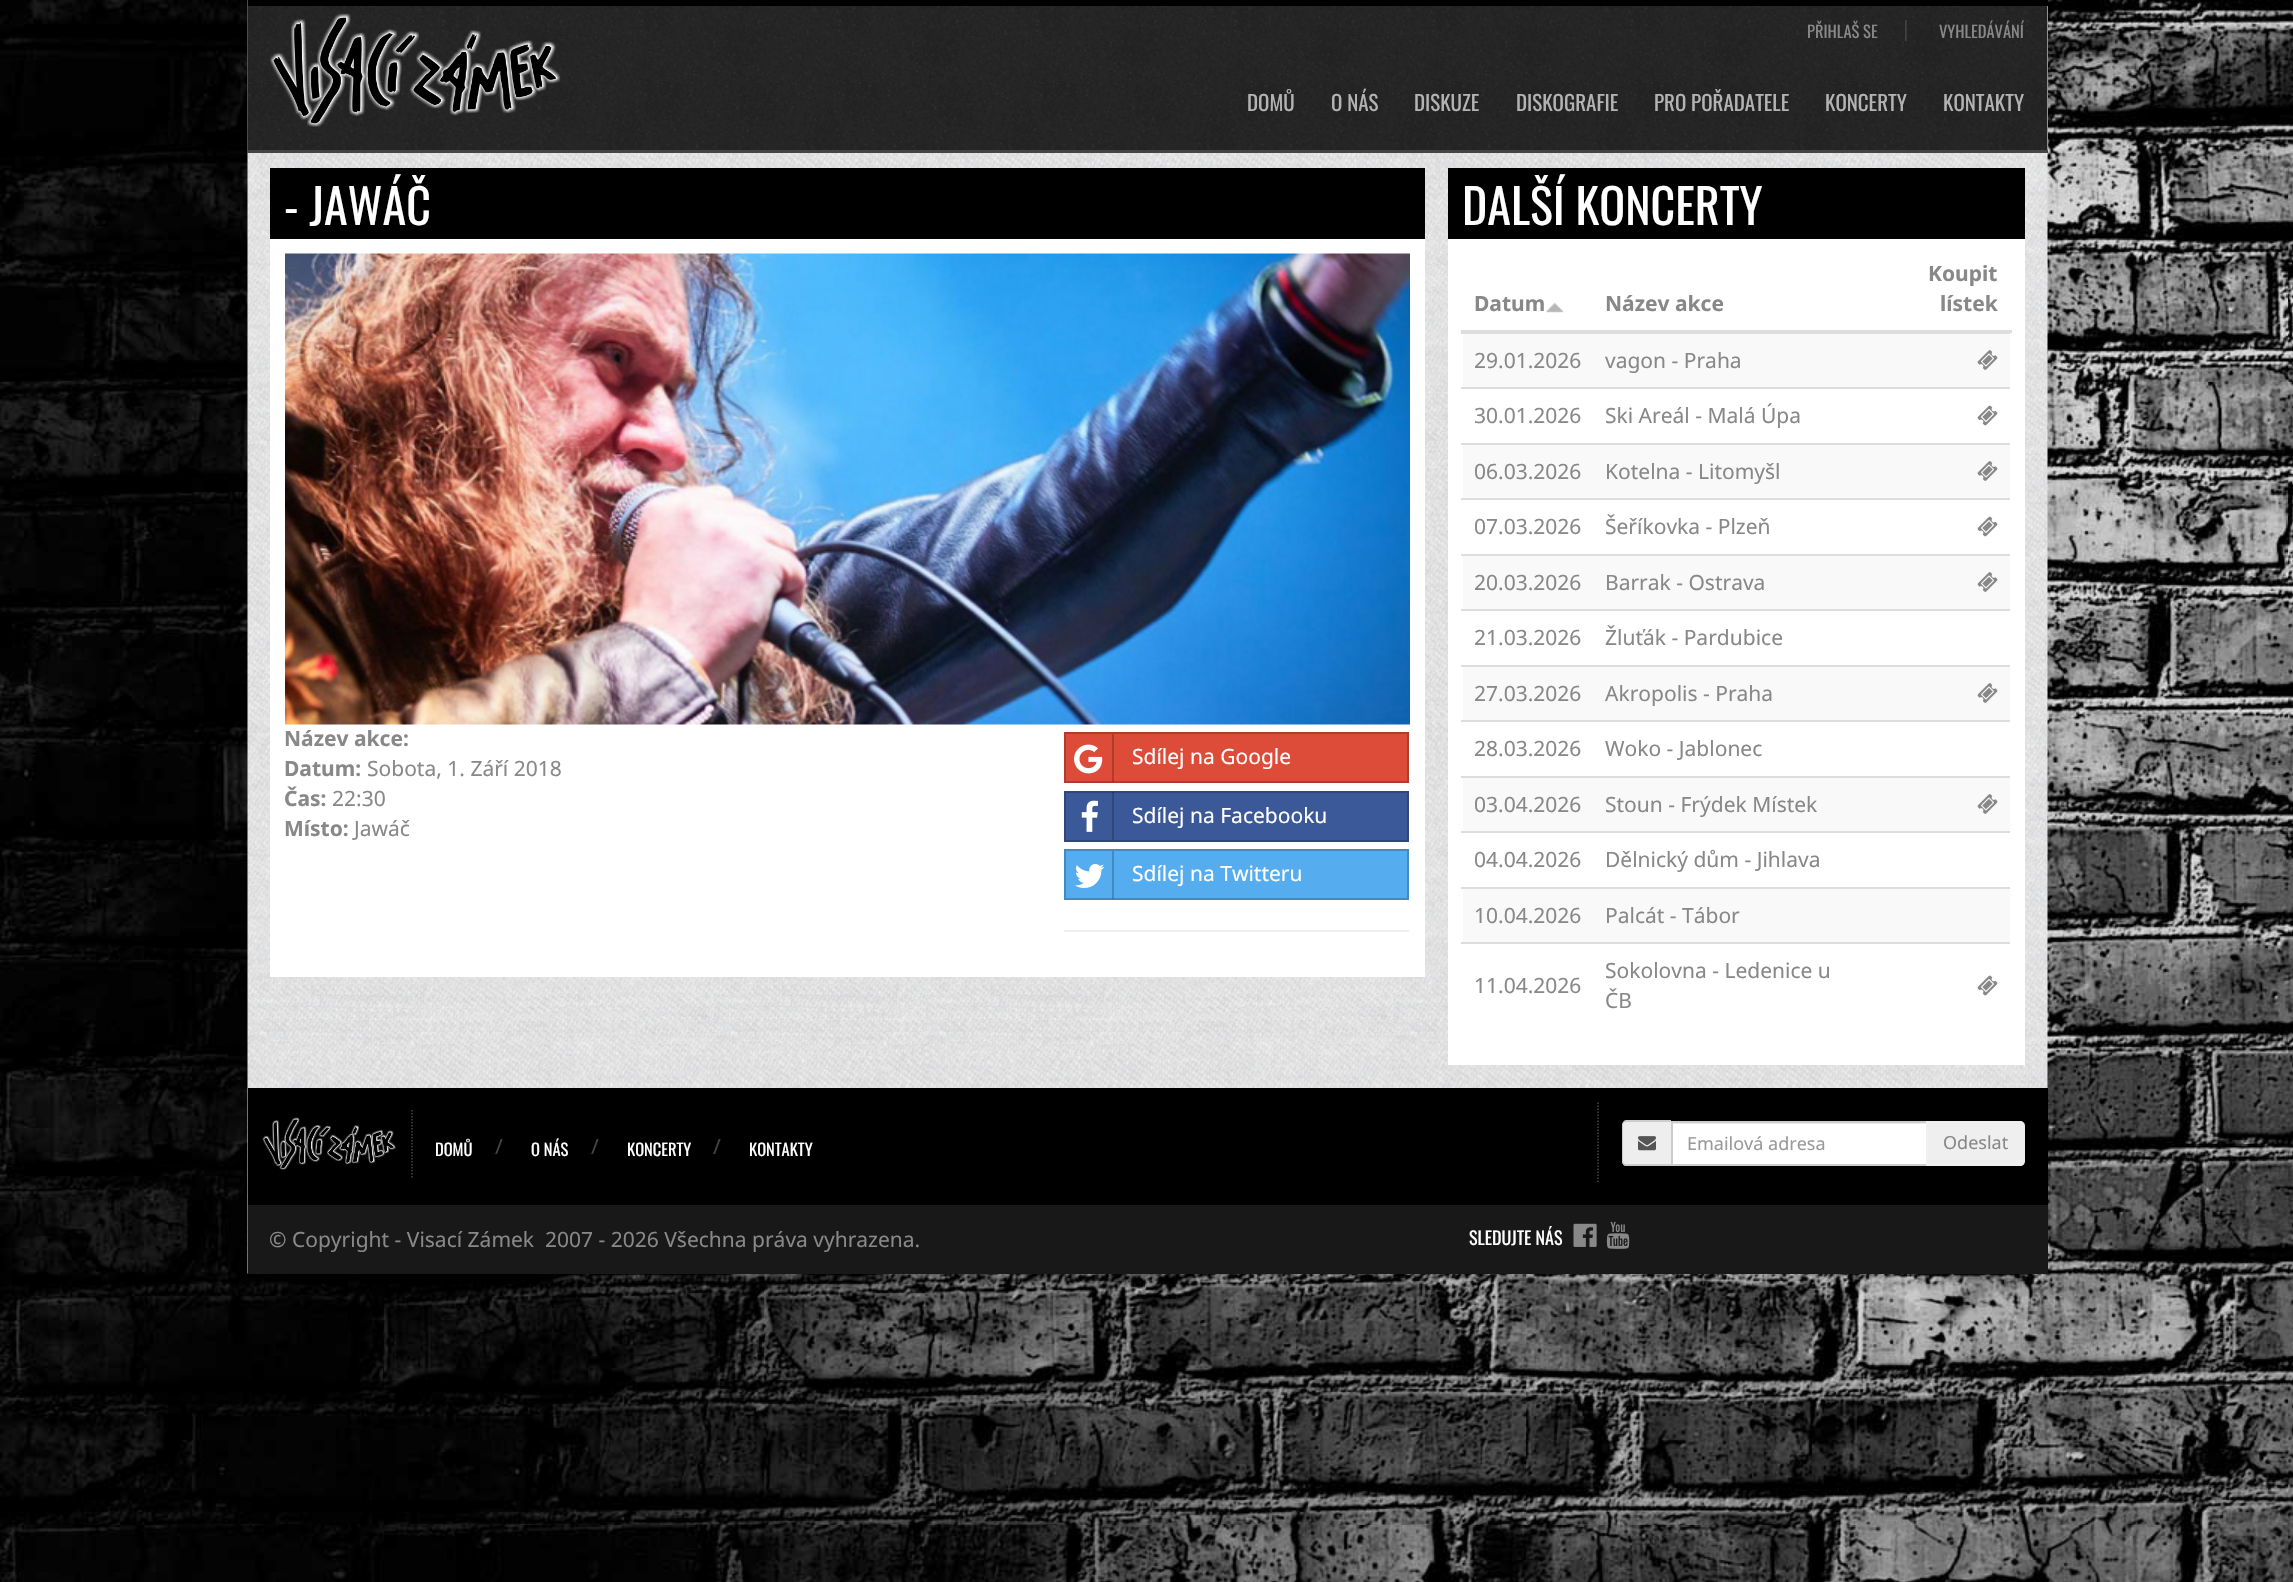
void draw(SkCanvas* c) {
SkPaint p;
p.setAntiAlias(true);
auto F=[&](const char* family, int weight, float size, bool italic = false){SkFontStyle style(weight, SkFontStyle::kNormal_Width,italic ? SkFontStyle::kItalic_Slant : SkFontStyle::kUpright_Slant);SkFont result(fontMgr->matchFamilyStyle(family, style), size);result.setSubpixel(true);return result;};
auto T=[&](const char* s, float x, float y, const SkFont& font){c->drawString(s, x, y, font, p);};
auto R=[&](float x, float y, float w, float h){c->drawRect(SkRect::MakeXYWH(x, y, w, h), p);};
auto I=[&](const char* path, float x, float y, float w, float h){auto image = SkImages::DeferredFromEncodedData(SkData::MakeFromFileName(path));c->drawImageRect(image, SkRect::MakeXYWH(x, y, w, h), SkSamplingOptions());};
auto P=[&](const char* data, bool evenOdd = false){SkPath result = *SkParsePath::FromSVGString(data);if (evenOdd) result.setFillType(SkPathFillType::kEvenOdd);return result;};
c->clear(0xffffffff);
I("1.png",0,0,2293,1582);
I("2.png",247,0,1801,1274);
p.setColor(0xffffffff);
R(2047,6,1,144);
I("3.png",247,0,1801,153);
p.setColor(0xff000000);
R(248,0,1800,6);
p.setColor(0xff444444);
R(248,150,1800,3);
I("4.png",270,13,291,114);
auto f1 = F("Oswald",400,16.5);
p.setColor(0xff888888);
T("PŘIHLAŠ SE",1807,38,f1);
auto f2 = F("Noto Sans",400,21);
p.setColor(0xff444444);
T("|",1900,36,f2);
p.setColor(0xff888888);
T("VYHLEDÁVÁNÍ",1939,38,f1);
auto f3 = F("Oswald",400,21);
p.setColor(0xffb3b3b3);
T("DOMŮ",1247,111,f3);
T("O NÁS",1331,111,f3);
T("DISKUZE",1414,111,f3);
T("DISKOGRAFIE",1516,111,f3);
T("PRO POŘADATELE",1654,111,f3);
T("KONCERTY",1825,111,f3);
T("KONTAKTY",1943,111,f3);
p.setColor(0xff000000);
R(270,168,1155,71);
auto f4 = F("Oswald",400,48);
p.setColor(0xffffffff);
T("- JAWÁČ",284,225,f4);
R(270,239,1155,738);
I("5.png",285,253,1125,472);
auto f5 = F("Noto Sans",700,21);
p.setColor(0xff888888);
T("Název akce:",284,746,f5);
T("Datum:",284,776,f5);
T("Sobota, 1. Září 2018",367,776,f2);
T("Čas:",284,806,f5);
T("22:30",332,806,f2);
T("Místo:",284,836,f5);
T("Jawáč",354,836,f2);
p.setColor(0xffdd4b39);
c->drawRect(SkRect::MakeXYWH(1065,733,343,49),p);
p.setStroke(true);
p.setStrokeWidth(2);
p.setColor(0xffb13c2e);
c->drawRect(SkRect::MakeXYWH(1065,733,343,49),p);
p.setStroke(false);
p.setColor(0x33000000);
R(1112,734,2,48);
I("6.png",1074,744,29,30);
p.setColor(0xffffffff);
T("Sdílej na Google",1132,764,f2);
p.setColor(0xff3b5998);
c->drawRect(SkRect::MakeXYWH(1065,792,343,49),p);
p.setStroke(true);
p.setColor(0xff2f477a);
c->drawRect(SkRect::MakeXYWH(1065,792,343,49),p);
p.setStroke(false);
p.setColor(0x33000000);
R(1112,792,2,48);
I("7.png",1081,800,17,32);
p.setColor(0xffffffff);
T("Sdílej na Facebooku",1132,823,f2);
p.setColor(0xff55acee);
c->drawRect(SkRect::MakeXYWH(1065,850,343,49),p);
p.setStroke(true);
p.setColor(0xff448abe);
c->drawRect(SkRect::MakeXYWH(1065,850,343,49),p);
p.setStroke(false);
p.setColor(0x33000000);
R(1112,851,2,48);
I("8.png",1075,864,30,24);
p.setColor(0xffffffff);
T("Sdílej na Twitteru",1132,881,f2);
p.setColor(0xffeeeeee);
R(1064,930,345,2);
p.setColor(0xffffffff);
R(1448,239,577,826);
p.setColor(0xff000000);
R(1448,168,577,71);
p.setColor(0xffffffff);
T("DALŠÍ KONCERTY",1462,225,f4);
p.setColor(0xff888888);
T("Datum",1474,311,f5);
I("9.png",1546,302,18,11);
T("Název akce",1605,311,f5);
p.setColor(0xffdddddd);
R(1461,330,551,3);
p.setColor(0xff888888);
T("Koupit",1928,281,f5);
T("lístek",1940,311,f5);
p.setColor(0xfff9f9f9);
R(1463,334,547,53);
p.setColor(0xffdddddd);
R(1461,333,549,1);
I("10.png",1977,350,21,20);
p.setColor(0xff888888);
T("29.01.2026",1474,368,f2);
T("vagon - Praha",1605,368,f2);
p.setColor(0xffdddddd);
R(1461,387,549,2);
I("11.png",1977,405,21,21);
p.setColor(0xff888888);
T("30.01.2026",1474,423,f2);
T("Ski Areál - Malá Úpa",1605,423,f2);
p.setColor(0xfff9f9f9);
R(1463,445,547,53);
p.setColor(0xffdddddd);
R(1461,443,549,2);
I("10.png",1977,461,21,20);
p.setColor(0xff888888);
T("06.03.2026",1474,479,f2);
T("Kotelna - Litomyšl",1605,479,f2);
p.setColor(0xffdddddd);
R(1461,498,549,2);
I("11.png",1977,516,21,21);
p.setColor(0xff888888);
T("07.03.2026",1474,534,f2);
T("Šeříkovka - Plzeň",1605,534,f2);
p.setColor(0xfff9f9f9);
R(1463,556,547,53);
p.setColor(0xffdddddd);
R(1461,554,549,2);
I("10.png",1977,572,21,20);
p.setColor(0xff888888);
T("20.03.2026",1474,590,f2);
T("Barrak - Ostrava",1605,590,f2);
p.setColor(0xffdddddd);
R(1461,609,549,2);
p.setColor(0xff888888);
T("21.03.2026",1474,645,f2);
T("Žluťák - Pardubice",1605,645,f2);
p.setColor(0xfff9f9f9);
R(1463,667,547,53);
p.setColor(0xffdddddd);
R(1461,665,549,2);
I("10.png",1977,683,21,20);
p.setColor(0xff888888);
T("27.03.2026",1474,701,f2);
T("Akropolis - Praha",1605,701,f2);
p.setColor(0xffdddddd);
R(1461,720,549,2);
p.setColor(0xff888888);
T("28.03.2026",1474,756,f2);
T("Woko - Jablonec",1605,756,f2);
p.setColor(0xfff9f9f9);
R(1463,778,547,53);
p.setColor(0xffdddddd);
R(1461,776,549,2);
I("10.png",1977,794,21,20);
p.setColor(0xff888888);
T("03.04.2026",1474,812,f2);
T("Stoun - Frýdek Místek",1605,812,f2);
p.setColor(0xffdddddd);
R(1461,831,549,2);
p.setColor(0xff888888);
T("04.04.2026",1474,867,f2);
T("Dělnický dům - Jihlava",1605,867,f2);
p.setColor(0xfff9f9f9);
R(1463,889,547,53);
p.setColor(0xffdddddd);
R(1461,887,549,2);
p.setColor(0xff888888);
T("10.04.2026",1474,923,f2);
T("Palcát - Tábor",1605,923,f2);
p.setColor(0xffdddddd);
R(1461,942,549,2);
I("11.png",1977,975,21,21);
p.setColor(0xff888888);
T("11.04.2026",1474,993,f2);
T("Sokolovna - Ledenice u",1605,978,f2);
T("ČB",1605,1008,f2);
p.setColor(0xff000000);
R(248,1088,1800,117);
p.setStroke(true);
p.setStrokeWidth(1.5);
p.setColor(0xff444444);
p.setPathEffect(SkDashPathEffect::Make({{1.5f,1.5f}}, 0));
c->drawPath(P("M412 1110v67.5"),p);
p.setPathEffect(nullptr);
I("12.png",262,1117,134,53);
p.setStroke(false);
p.setColor(0xffffffff);
T("DOMŮ",435,1156,f1);
p.setColor(0xff444444);
T("/",495,1154,f2);
p.setColor(0xffffffff);
T("O NÁS",531,1156,f1);
p.setColor(0xff444444);
T("/",591,1154,f2);
p.setColor(0xffffffff);
T("KONCERTY",627,1156,f1);
p.setColor(0xff444444);
T("/",713,1154,f2);
p.setColor(0xffffffff);
T("KONTAKTY",749,1156,f1);
p.setStroke(true);
p.setColor(0xff444444);
p.setPathEffect(SkDashPathEffect::Make({{1.5f,1.5f}}, 0));
c->drawPath(P("M1598 1102.5v81"),p);
p.setPathEffect(nullptr);
p.setStroke(false);
p.setColor(0xffeeeeee);
c->drawPath(P("M1627 1121h44v45h-44c-3 0-5-2-5-5v-35c0-3 2-5 5-5z"),p);
p.setColor(0xffcccccc);
c->drawPath(P("M1626 1120h45v46h-45c-2 0-4-3-4-5v-36c0-2 2-5 4-5zm0 2h45v42h-45c-2 0-3-1-3-3v-36c0-2 1-3 3-3z",true),p);
I("13.png",1638,1136,18,15);
p.setColor(0xffffffff);
R(1673,1124,253,40);
p.setColor(0xffececec);
R(1673,1123,253,1);
p.setStroke(true);
p.setStrokeWidth(2);
p.setColor(0xffcccccc);
c->drawRect(SkRect::MakeXYWH(1672,1122,255,43),p);
auto f6 = F("Noto Sans",400,18);
p.setStroke(false);
p.setColor(0xff999999);
T("Emailová adresa",1687,1150,f6);
p.setColor(0xffefefef);
c->drawPath(P("M1926 1121h94c3 0 5 2 5 5v35c0 3-2 5-5 5h-94z"),p);
p.setColor(0xff888888);
T("Odeslat",1943,1149,f6);
p.setColor(0xff181818);
R(248,1205,1800,69);
p.setColor(0xff888888);
T("© Copyright - Visací Zámek",269,1247,f2);
T("2007 - 2026 Všechna práva vyhrazena.",545,1247,f2);
auto f7 = F("Oswald",400,18);
p.setColor(0xffffffff);
T("SLEDUJTE NÁS",1469,1245,f7);
I("14.png",1573,1223,24,24);
I("15.png",1606,1221,24,28);
}
